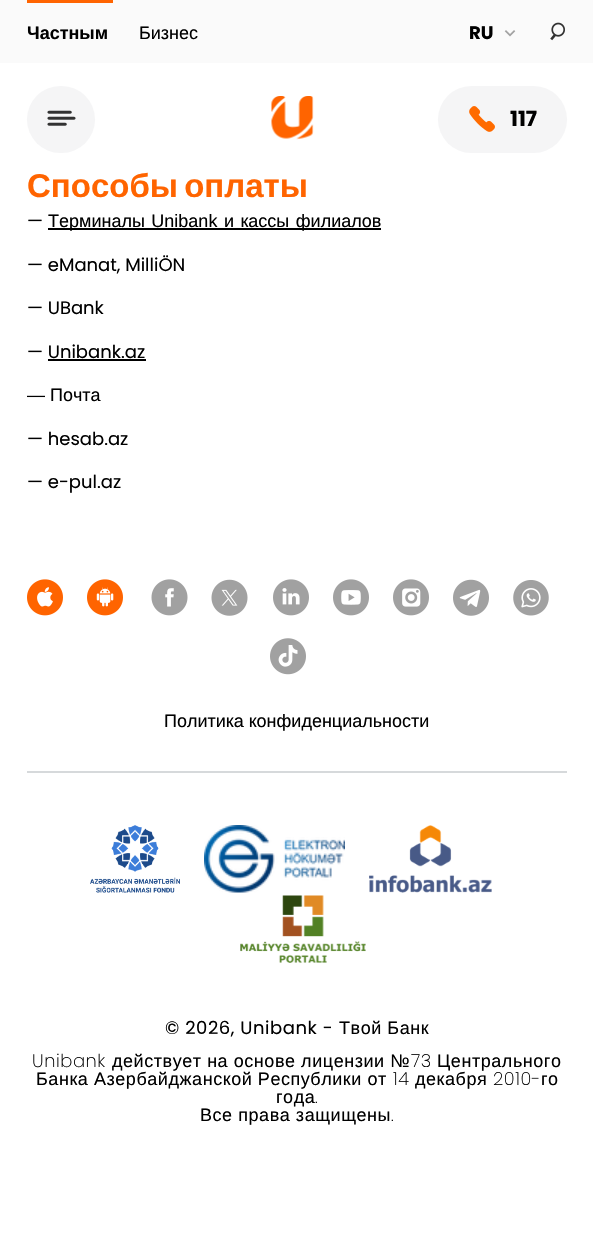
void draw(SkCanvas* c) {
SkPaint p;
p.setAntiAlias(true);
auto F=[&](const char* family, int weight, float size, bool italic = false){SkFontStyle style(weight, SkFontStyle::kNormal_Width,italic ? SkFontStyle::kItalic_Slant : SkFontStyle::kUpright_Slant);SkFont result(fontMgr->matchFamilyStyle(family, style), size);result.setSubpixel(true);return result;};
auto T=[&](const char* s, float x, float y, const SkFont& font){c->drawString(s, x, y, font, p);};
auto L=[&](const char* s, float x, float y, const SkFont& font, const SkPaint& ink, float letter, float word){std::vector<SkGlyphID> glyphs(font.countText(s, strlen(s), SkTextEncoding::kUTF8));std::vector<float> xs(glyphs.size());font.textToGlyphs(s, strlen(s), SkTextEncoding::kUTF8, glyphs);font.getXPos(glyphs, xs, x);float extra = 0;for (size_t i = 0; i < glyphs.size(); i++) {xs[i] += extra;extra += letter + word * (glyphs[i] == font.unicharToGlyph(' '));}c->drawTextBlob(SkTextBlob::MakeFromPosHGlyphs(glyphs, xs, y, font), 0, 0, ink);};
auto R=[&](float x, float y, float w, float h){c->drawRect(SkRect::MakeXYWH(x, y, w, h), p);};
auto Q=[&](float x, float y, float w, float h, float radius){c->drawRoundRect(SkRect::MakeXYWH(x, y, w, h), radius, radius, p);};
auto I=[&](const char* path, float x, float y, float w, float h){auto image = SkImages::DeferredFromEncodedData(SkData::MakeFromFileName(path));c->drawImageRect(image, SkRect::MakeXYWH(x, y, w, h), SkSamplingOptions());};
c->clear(0xffffffff);
p.setColor(0xfffafafa);
R(0,0,593,63);
p.setColor(0xffff6400);
R(27,0,86,3);
auto f1 = F("Liberation Sans",700,18);
p.setColor(0xff000000);
T("Частным",27,39,f1);
auto f2 = F("Liberation Sans",400,18);
T("Бизнес",139,39,f2);
I("1.png",504,30,12,7);
auto f3 = F("Poppins",700,18);
T("RU",469,39,f3);
I("2.png",550,22,15,19);
p.setColor(0xfff5f5f6);
Q(27,86,68,67,33.5);
I("3.png",47,110,29,16);
I("4.png",271,96,43,44);
Q(438,86,129,67,33.5);
I("5.png",469,106,26,26);
auto f4 = F("Poppins",700,21);
p.setColor(0xff000000);
T("117",510,126,f4);
auto f5 = F("Liberation Sans",700,33);
p.setColor(0xffff6400);
L("Способы оплаты",27,197,f5,p,0,-3);
auto f6 = F("Poppins",400,18);
p.setColor(0xff000000);
T("—",27,227,f6);
R(48,228,333,2);
L("Терминалы Unibank и кассы филиалов",48,227,f2,p,0,1.5);
T("— eManat, MilliÖN",27,271,f6);
T("— UBank",27,314,f6);
T("— Unibank.az",27,358,f6);
R(48,359,98,2);
T("— Почта",27,401,f2);
T("— hesab.az",27,445,f6);
T("— e-pul.az",27,488,f6);
p.setColor(0xffd6d9db);
R(27,771,540,2);
I("6.png",27,579,36,37);
I("7.png",87,579,36,37);
I("8.png",151,579,37,37);
I("9.png",211,579,37,37);
I("10.png",273,579,36,37);
I("11.png",333,579,36,37);
I("12.png",393,579,36,37);
I("13.png",453,579,36,37);
I("14.png",513,580,36,36);
I("15.png",270,638,36,37);
p.setColor(0xff000000);
T("Политика конфиденциальности",164,727,f2);
I("16.png",90,825,90,68);
I("17.png",204,825,141,68);
I("18.png",369,825,123,68);
I("19.png",240,895,126,68);
L("© 2026, Unibank -",165,1034,f6,p,.55,0);
L("Твой Банк",339,1034,f2,p,.55,0);
auto f7 = F("Poppins",200,18);
L("Unibank",32,1067,f7,p,.55,0);
L("действует на основе лицензии №",112,1067,f2,p,.55,0);
L("73",411,1067,f7,p,.55,0);
L("Центрального",437,1067,f2,p,.55,0);
L("Банка Азербайджанской Республики от",36,1085,f2,p,.55,0);
L("14",393,1085,f7,p,.55,0);
L("декабря",415,1085,f2,p,.55,0);
L("2010-",493,1085,f7,p,.55,0);
L("го",541,1085,f2,p,.55,0);
L("года",276,1103,f2,p,.55,0);
L(".",315,1103,f7,p,.55,0);
L("Все права защищены",200,1121,f2,p,.55,0);
L(".",391,1121,f7,p,.55,0);
}
